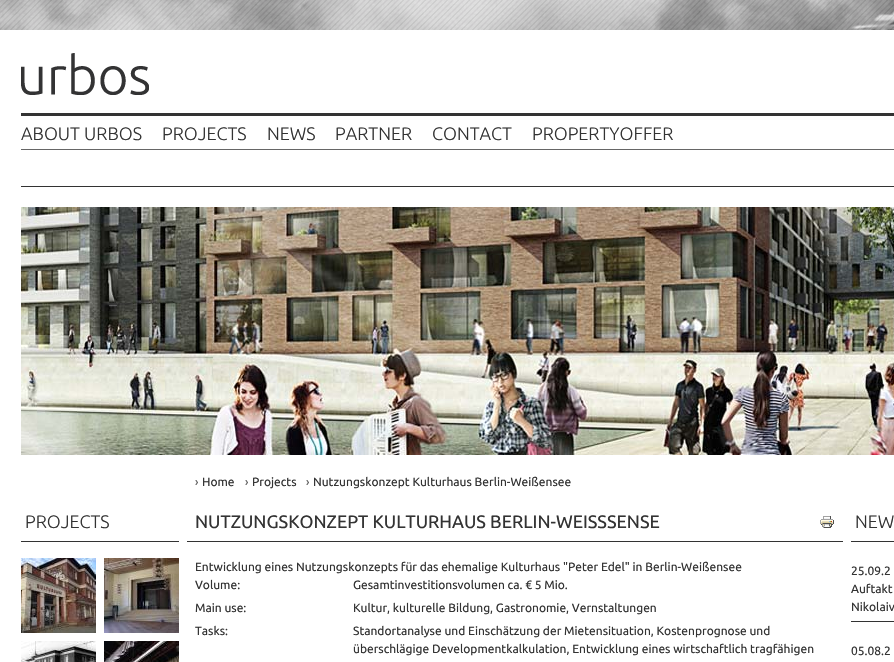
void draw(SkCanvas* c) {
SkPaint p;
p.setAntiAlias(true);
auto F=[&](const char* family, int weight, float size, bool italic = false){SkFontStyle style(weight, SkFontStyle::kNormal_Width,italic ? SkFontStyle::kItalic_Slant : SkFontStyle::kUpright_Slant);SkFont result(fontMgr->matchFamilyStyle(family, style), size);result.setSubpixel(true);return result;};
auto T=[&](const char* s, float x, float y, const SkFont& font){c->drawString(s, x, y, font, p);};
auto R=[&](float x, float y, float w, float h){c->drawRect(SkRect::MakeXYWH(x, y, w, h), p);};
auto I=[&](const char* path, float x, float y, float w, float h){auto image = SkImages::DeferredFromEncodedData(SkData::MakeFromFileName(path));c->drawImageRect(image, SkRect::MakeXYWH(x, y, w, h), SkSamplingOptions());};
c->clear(0xffffffff);
I("1.png",0,0,894,30);
I("2.png",0,0,894,30);
I("3.png",21,53,128,42);
p.setColor(0xff666666);
R(21,149,873,1);
p.setColor(0xff333333);
R(21,113,873,3);
R(21,186,873,1);
auto f1 = F("Ubuntu",300,18);
T("ABOUT URBOS",21,140,f1);
T("PROJECTS",162,140,f1);
T("NEWS",267,140,f1);
T("PARTNER",335,140,f1);
T("CONTACT",432,140,f1);
T("PROPERTYOFFER",532,140,f1);
I("4.png",21,207,873,248);
I("5.png",195,480,3,5);
auto f2 = F("Ubuntu",400,12);
T("Home",202,486,f2);
I("5.png",245,480,3,5);
T("Projects",252,486,f2);
I("5.png",306,480,3,5);
T("Nutzungskonzept Kulturhaus Berlin-Weißensee",313,486,f2);
R(21,541,158,1);
T("PROJECTS",25,528,f1);
R(187,541,656,1);
auto f3 = F("Ubuntu",400,18);
T("NUTZUNGSKONZEPT KULTURHAUS BERLIN-WEISSSENSE",195,528,f3);
I("6.png",21,558,75,75);
I("7.png",104,558,75,75);
I("8.png",21,641,75,21);
I("9.png",104,641,75,21);
I("10.png",820,516,14,12);
T("Entwicklung eines Nutzungskonzepts für das ehemalige Kulturhaus \"Peter Edel\" in Berlin-Weißensee",195,571,f2);
T("Volume:",195,589,f2);
T("Gesamtinvestitionsvolumen ca. € 5 Mio.",353,589,f2);
T("Main use:",195,612,f2);
T("Kultur, kulturelle Bildung, Gastronomie, Vernstaltungen",353,612,f2);
T("Tasks:",195,635,f2);
T("Standortanalyse und Einschätzung der Mietensituation, Kostenprognose und",353,635,f2);
T("überschlägige Developmentkalkulation, Entwicklung eines wirtschaftlich tragfähigen",353,653,f2);
R(851,541,43,1);
T("NEW",855,528,f1);
R(851,621,43,1);
T("25.09.2",851,575,f2);
T("Auftakt",851,593,f2);
T("Nikolaiv",851,611,f2);
T("05.08.2",851,655,f2);
}
